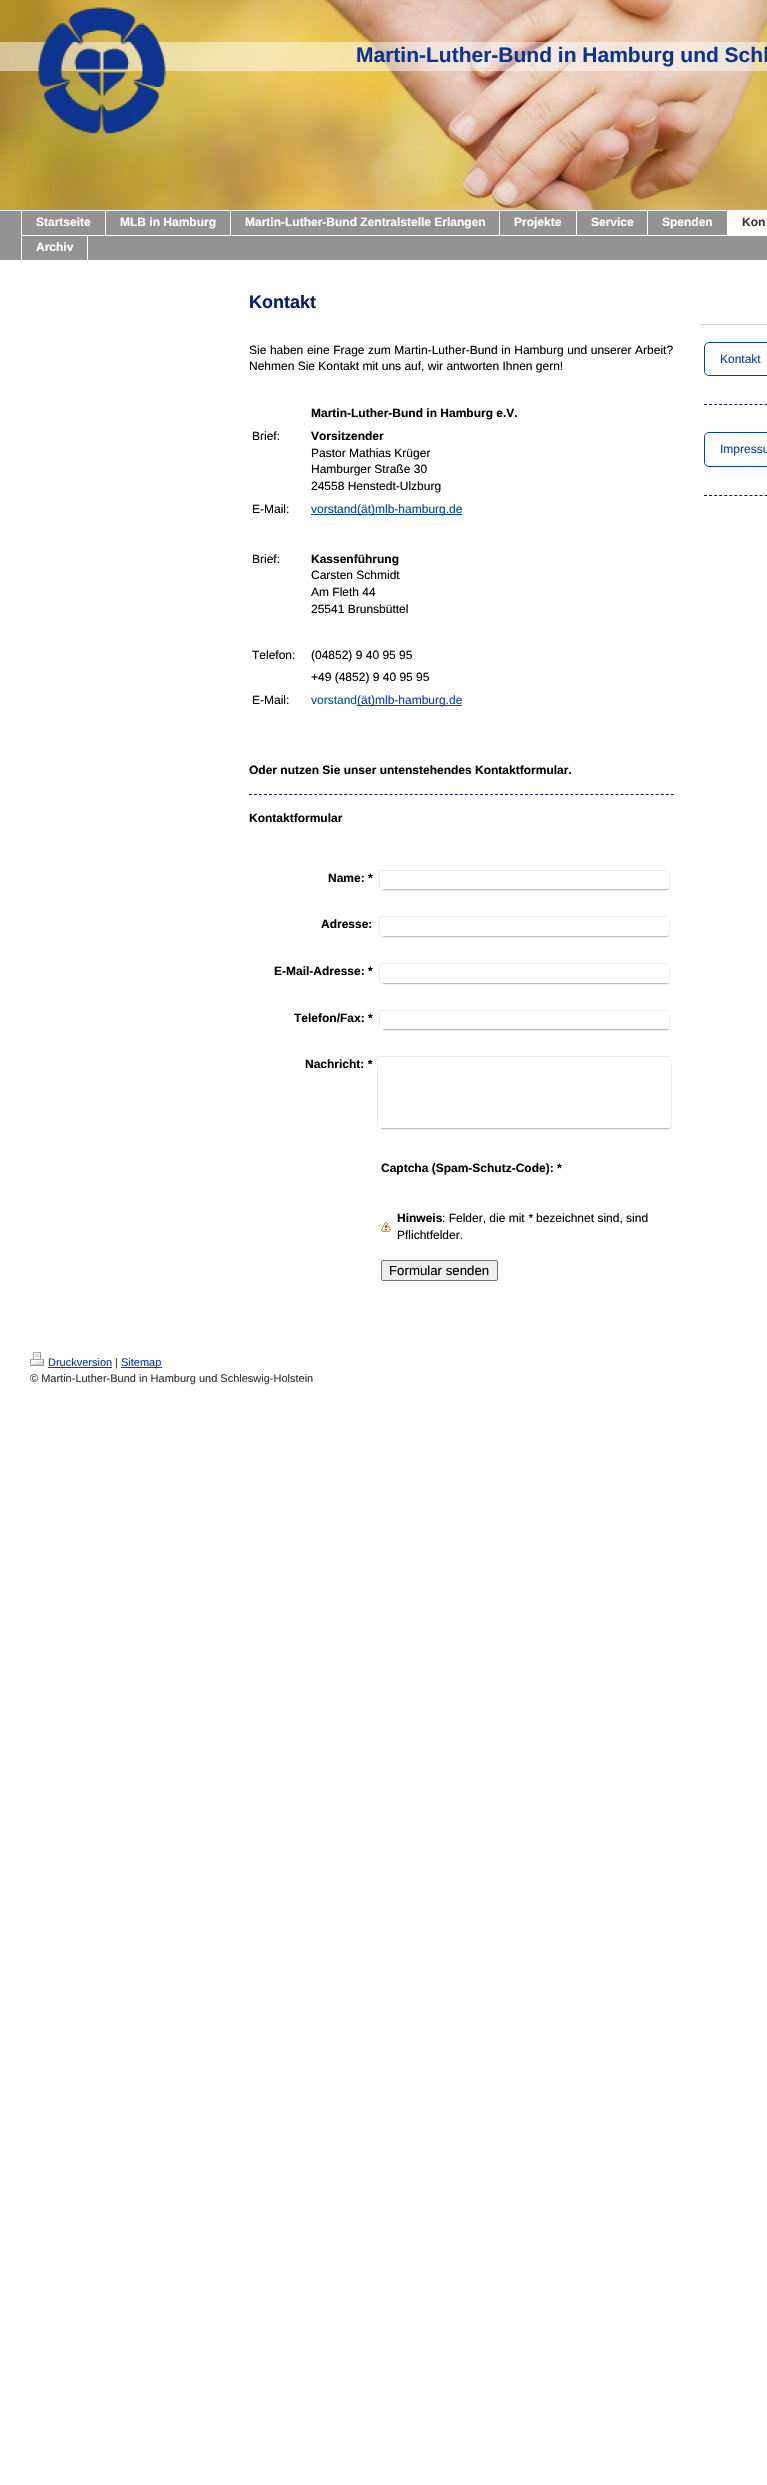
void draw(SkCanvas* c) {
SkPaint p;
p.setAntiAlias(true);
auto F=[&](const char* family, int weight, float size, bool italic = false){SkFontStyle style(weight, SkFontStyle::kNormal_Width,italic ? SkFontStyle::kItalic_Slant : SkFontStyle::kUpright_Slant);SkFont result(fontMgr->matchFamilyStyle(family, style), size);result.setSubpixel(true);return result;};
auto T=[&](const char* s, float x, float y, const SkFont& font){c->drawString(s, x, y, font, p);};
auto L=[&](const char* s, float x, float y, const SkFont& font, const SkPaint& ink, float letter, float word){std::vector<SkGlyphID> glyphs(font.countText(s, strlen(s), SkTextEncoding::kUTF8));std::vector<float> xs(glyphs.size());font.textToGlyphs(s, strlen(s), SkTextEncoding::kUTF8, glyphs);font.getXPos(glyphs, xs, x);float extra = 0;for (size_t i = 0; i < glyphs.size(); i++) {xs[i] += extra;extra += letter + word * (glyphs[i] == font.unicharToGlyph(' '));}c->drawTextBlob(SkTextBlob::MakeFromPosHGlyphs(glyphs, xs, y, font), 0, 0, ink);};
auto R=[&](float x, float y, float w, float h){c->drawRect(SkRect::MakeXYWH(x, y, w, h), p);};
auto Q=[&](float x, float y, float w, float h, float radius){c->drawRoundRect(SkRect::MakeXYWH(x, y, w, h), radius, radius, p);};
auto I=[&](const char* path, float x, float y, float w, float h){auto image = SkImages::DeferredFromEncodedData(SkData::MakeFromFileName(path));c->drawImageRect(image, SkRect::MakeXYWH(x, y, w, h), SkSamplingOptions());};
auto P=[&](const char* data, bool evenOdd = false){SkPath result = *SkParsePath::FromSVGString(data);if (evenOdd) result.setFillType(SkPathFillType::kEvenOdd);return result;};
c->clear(0xffffffff);
I("1.png",0,0,767,210);
p.setColor(0x80ffffff);
R(0,42,767,29);
I("2.png",38,7,128,128);
auto f1 = F("Liberation Sans",700,21);
p.setColor(0xff0d358f);
T("Martin-Luther-Bund in Hamburg und Schl",356,62,f1);
p.setColor(0xff939393);
R(0,211,767,49);
p.setColor(0xffffffff);
R(21,210,1,50);
R(105,210,1,26);
R(22,235,84,1);
auto f2 = F("Liberation Sans",700,12);
T("Startseite",36,226,f2);
R(230,210,1,26);
R(106,235,125,1);
T("MLB in Hamburg",120,226,f2);
R(499,210,1,26);
R(231,235,269,1);
T("Martin-Luther-Bund Zentralstelle Erlangen",245,226,f2);
R(576,210,1,26);
R(500,235,77,1);
T("Projekte",514,226,f2);
R(647,210,1,26);
R(577,235,71,1);
T("Service",591,226,f2);
R(727,210,1,26);
R(648,235,80,1);
T("Spenden",662,226,f2);
R(728,211,39,25);
p.setColor(0xff333333);
T("Kon",742,226,f2);
p.setColor(0xffffffff);
R(87,235,1,26);
T("Archiv",36,251,f2);
auto f3 = F("Liberation Sans",700,18);
p.setColor(0xff051972);
T("Kontakt",249,308,f3);
auto f4 = F("Liberation Sans",400,12);
p.setColor(0xff000000);
L("Sie haben eine Frage zum Martin-Luther-Bund in Hamburg und unserer Arbeit?",249,354,f4,p,0,.25);
T("Nehmen Sie Kontakt mit uns auf, wir antworten Ihnen gern!",249,370,f4);
T("Martin-Luther-Bund in Hamburg e.V.",311,417,f2);
T("Brief:",252,440,f4);
T("Vorsitzender",311,440,f2);
T("Pastor Mathias Krüger",311,457,f4);
T("Hamburger Straße 30",311,473,f4);
T("24558 Henstedt-Ulzburg",311,490,f4);
T("E-Mail:",252,513,f4);
p.setColor(0xff0040b6);
R(311,514,151,1);
T("vorstand(ät)mlb-hamburg.de",311,513,f4);
p.setColor(0xff000000);
T("Brief:",252,563,f4);
T("Kassenführung",311,563,f2);
T("Carsten Schmidt",311,579,f4);
T("Am Fleth 44",311,596,f4);
T("25541 Brunsbüttel",311,613,f4);
T("Telefon:",252,659,f4);
T("(04852) 9 40 95 95",311,659,f4);
T("+49 (4852) 9 40 95 95",311,681,f4);
T("E-Mail:",252,704,f4);
p.setColor(0xff03579b);
T("vorstand",311,704,f4);
p.setColor(0xff0040b6);
R(357,705,105,1);
T("(ät)mlb-hamburg.de",357,704,f4);
p.setColor(0xff000000);
T("Oder nutzen Sie unser untenstehendes Kontaktformular.",249,774,f2);
p.setStroke(true);
p.setStrokeWidth(1);
p.setColor(0xff051972);
p.setPathEffect(SkDashPathEffect::Make({{3,2.02f}}, 0));
c->drawPath(P("M249 794.5h425"),p);
p.setPathEffect(nullptr);
p.setStroke(false);
p.setColor(0xff000000);
T("Kontaktformular",249,822,f2);
p.setColor(0xffebebeb);
c->drawPath(P("M381 870c-3 0-2 7-2 9c0 2-1 8 1 9v-8c0-2-1-9 2-9h286l-2-1z"),p);
p.setColor(0xcc000000);
p.setMaskFilter(SkMaskFilter::MakeBlur(kNormal_SkBlurStyle, 1));
c->drawRect(SkRect::MakeXYWH(383,875,285,14),p);
p.setMaskFilter(nullptr);
p.setColor(0xff000000);
T("Name: *",328,882,f2);
p.setColor(0xffffffff);
Q(380,871,289,18,2);
p.setColor(0xffebebeb);
c->drawPath(P("M381 916c-3 0-2 8-2 10c0 1-1 8 1 9v-9c0-1-1-9 2-9h286l-2-1z"),p);
p.setColor(0xcc000000);
p.setMaskFilter(SkMaskFilter::MakeBlur(kNormal_SkBlurStyle, 1));
c->drawRect(SkRect::MakeXYWH(383,921,285,15),p);
p.setMaskFilter(nullptr);
p.setColor(0xff000000);
T("Adresse:",321,928,f2);
p.setColor(0xffffffff);
Q(380,917,289,19,2);
p.setColor(0xffebebeb);
c->drawPath(P("M381 963c-3 0-2 8-2 9c0 2-1 9 1 10v-8c0-2-1-10 2-10h286l-2-1z"),p);
p.setColor(0xcc000000);
p.setMaskFilter(SkMaskFilter::MakeBlur(kNormal_SkBlurStyle, 1));
c->drawRect(SkRect::MakeXYWH(383,968,285,15),p);
p.setMaskFilter(nullptr);
p.setColor(0xff000000);
T("E-Mail-Adresse: *",274,975,f2);
p.setColor(0xffffffff);
Q(380,964,289,19,2);
p.setColor(0xffebebeb);
c->drawPath(P("M381 1010c-3 0-2 7-2 9c0 2-1 8 1 9v-8c0-2-1-9 2-9h286l-2-1z"),p);
p.setColor(0xcc000000);
p.setMaskFilter(SkMaskFilter::MakeBlur(kNormal_SkBlurStyle, 1));
c->drawRect(SkRect::MakeXYWH(383,1015,285,14),p);
p.setMaskFilter(nullptr);
p.setColor(0xff000000);
T("Telefon/Fax: *",294,1022,f2);
p.setColor(0xffffffff);
Q(380,1011,289,18,2);
p.setColor(0xffebebeb);
c->drawPath(P("M379 1056l-2 1v68l1 2v-57c0-4-2-13 2-13h290l-2-1z"),p);
p.setColor(0xcc000000);
p.setMaskFilter(SkMaskFilter::MakeBlur(kNormal_SkBlurStyle, 1));
c->drawRect(SkRect::MakeXYWH(381,1061,289,67),p);
p.setMaskFilter(nullptr);
p.setColor(0xff000000);
T("Nachricht: *",305,1068,f2);
p.setColor(0xffffffff);
Q(378,1057,293,71,2);
p.setColor(0xff000000);
T("Captcha (Spam-Schutz-Code): *",381,1172,f2);
I("3.png",381,1222,10,10);
T("Hinweis",397,1222,f2);
T(": Felder, die mit",442,1222,f4);
auto f5 = F("Liberation Sans",400,12,true);
T("*",528,1222,f5);
T("bezeichnet sind, sind",536,1222,f4);
T("Pflichtfelder.",397,1239,f4);
p.setColor(0xffefefef);
c->drawRoundRect(SkRect::MakeXYWH(381.5,1260.5,116,20),1.5,1.5,p);
p.setStroke(true);
p.setColor(0xff767676);
c->drawRoundRect(SkRect::MakeXYWH(381.5,1260.5,116,20),1.5,1.5,p);
auto f6 = F("Liberation Sans",400,13.25);
p.setStroke(false);
p.setColor(0xff000000);
T("Formular senden",389,1275,f6);
p.setColor(0xffcad1d5);
R(699,324,68,1);
p.setStroke(true);
p.setColor(0xff0040b6);
c->drawRoundRect(SkRect::MakeXYWH(704.5,342.5,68,33),4.5,4.5,p);
p.setStroke(false);
T("Kontakt",720,363,f4);
p.setStroke(true);
p.setColor(0xff051972);
p.setPathEffect(SkDashPathEffect::Make({{3,2.05f}}, 0));
c->drawPath(P("M704 404.5h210"),p);
p.setPathEffect(nullptr);
p.setColor(0xff0040b6);
c->drawRoundRect(SkRect::MakeXYWH(704.5,432.5,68,34),4.5,4.5,p);
p.setStroke(false);
T("Impressu",720,453,f4);
p.setStroke(true);
p.setColor(0xff051972);
p.setPathEffect(SkDashPathEffect::Make({{3,2.05f}}, 0));
c->drawPath(P("M704 495.5h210"),p);
p.setPathEffect(nullptr);
I("4.png",30,1352,14,14);
auto f7 = F("Liberation Sans",400,11);
p.setStroke(false);
p.setColor(0xff0040b6);
T("Druckversion",48,1366,f7);
R(48,1367,64,1);
p.setColor(0xff333333);
T("|",115,1366,f7);
p.setColor(0xff0040b6);
R(121,1367,41,1);
T("Sitemap",121,1366,f7);
p.setColor(0xff333333);
T("© Martin-Luther-Bund in Hamburg und Schleswig-Holstein",30,1382,f7);
}
